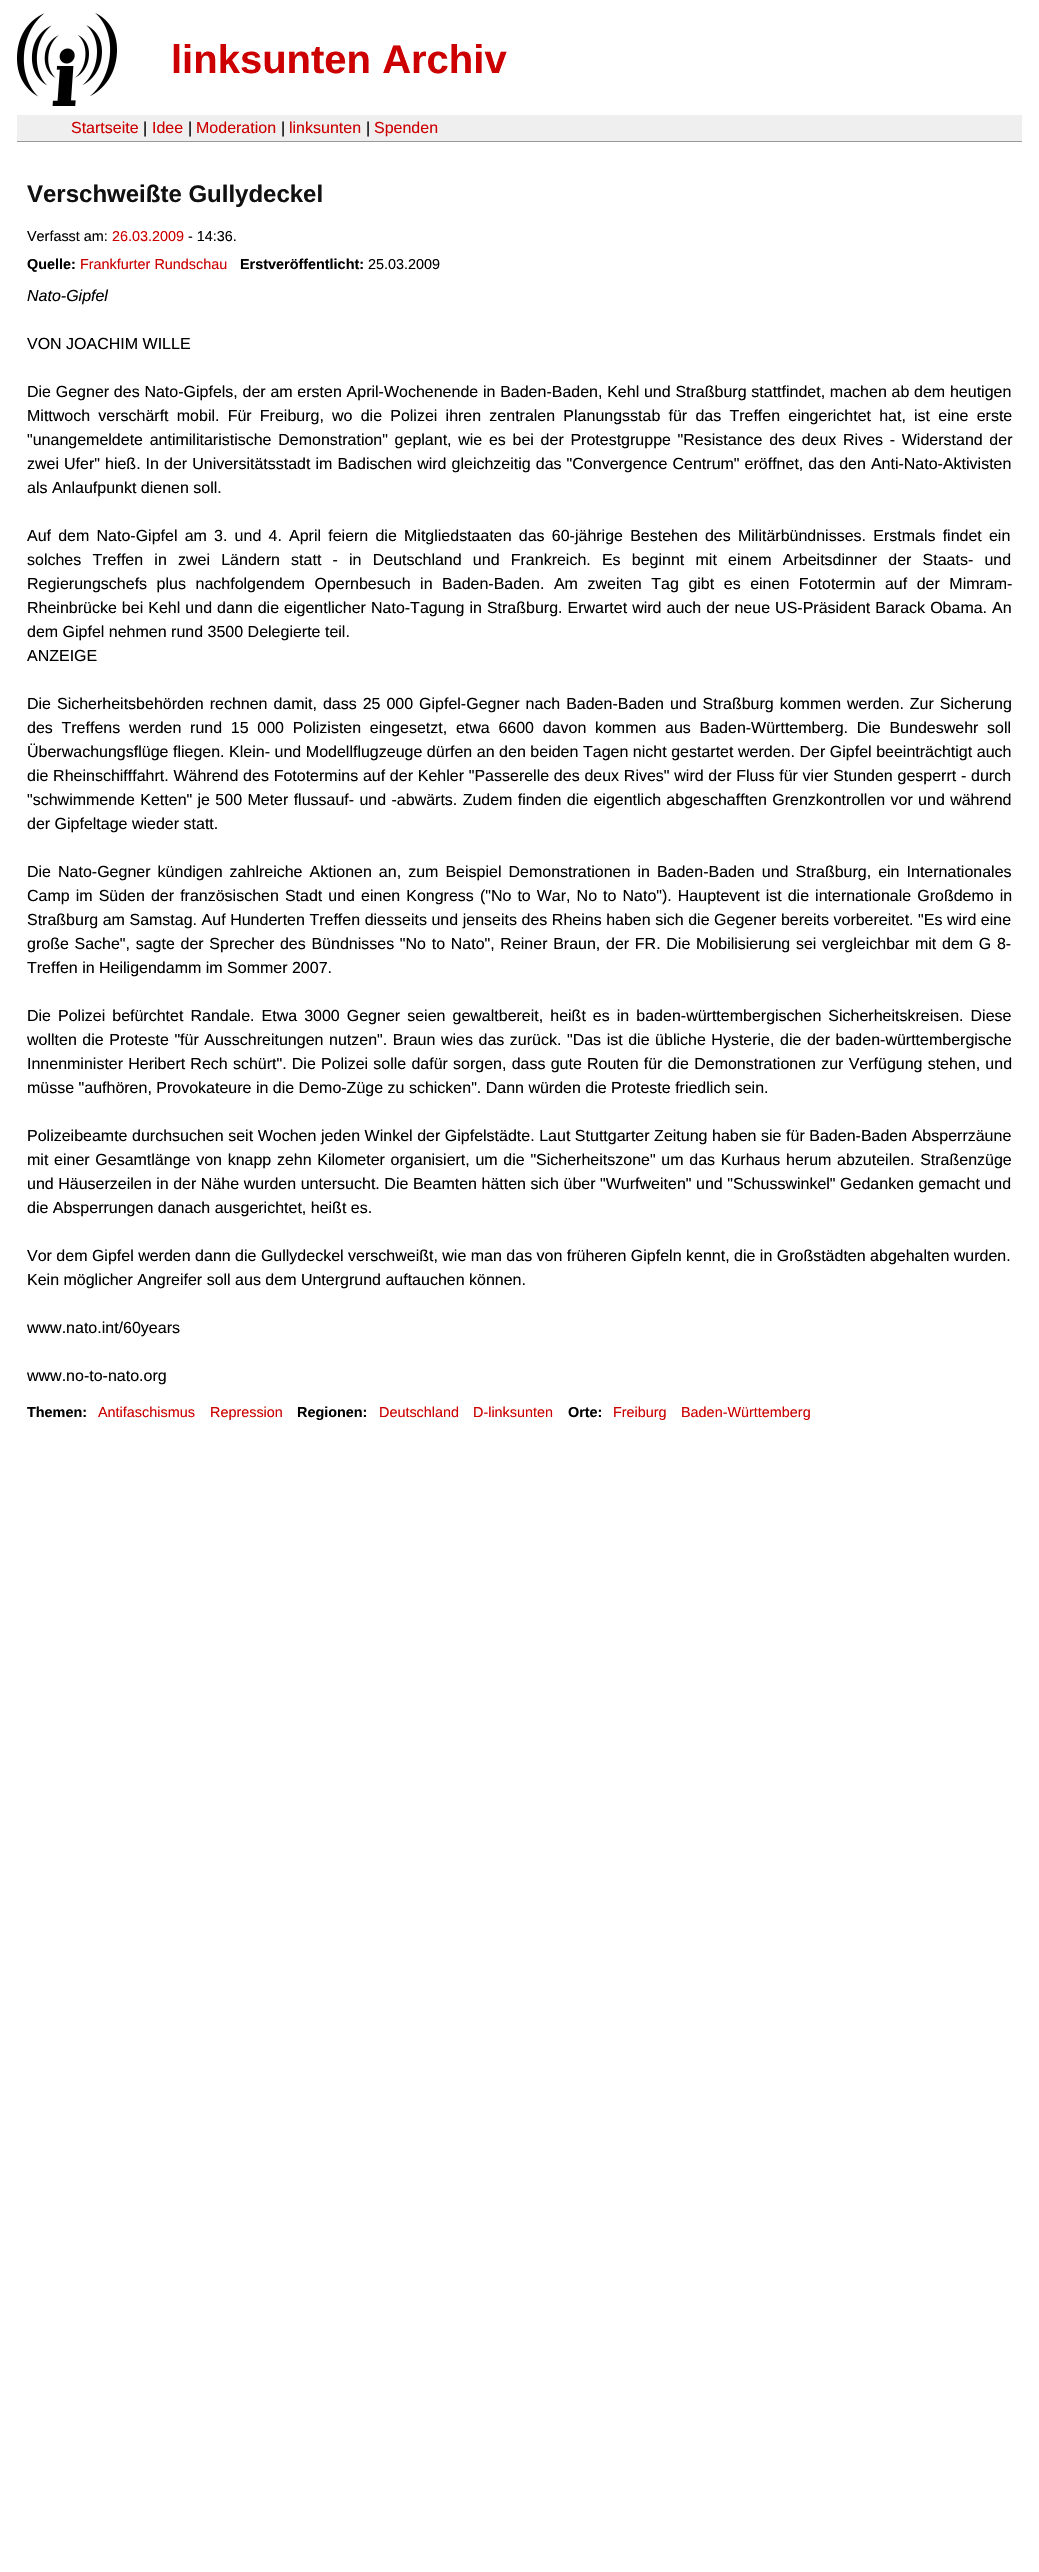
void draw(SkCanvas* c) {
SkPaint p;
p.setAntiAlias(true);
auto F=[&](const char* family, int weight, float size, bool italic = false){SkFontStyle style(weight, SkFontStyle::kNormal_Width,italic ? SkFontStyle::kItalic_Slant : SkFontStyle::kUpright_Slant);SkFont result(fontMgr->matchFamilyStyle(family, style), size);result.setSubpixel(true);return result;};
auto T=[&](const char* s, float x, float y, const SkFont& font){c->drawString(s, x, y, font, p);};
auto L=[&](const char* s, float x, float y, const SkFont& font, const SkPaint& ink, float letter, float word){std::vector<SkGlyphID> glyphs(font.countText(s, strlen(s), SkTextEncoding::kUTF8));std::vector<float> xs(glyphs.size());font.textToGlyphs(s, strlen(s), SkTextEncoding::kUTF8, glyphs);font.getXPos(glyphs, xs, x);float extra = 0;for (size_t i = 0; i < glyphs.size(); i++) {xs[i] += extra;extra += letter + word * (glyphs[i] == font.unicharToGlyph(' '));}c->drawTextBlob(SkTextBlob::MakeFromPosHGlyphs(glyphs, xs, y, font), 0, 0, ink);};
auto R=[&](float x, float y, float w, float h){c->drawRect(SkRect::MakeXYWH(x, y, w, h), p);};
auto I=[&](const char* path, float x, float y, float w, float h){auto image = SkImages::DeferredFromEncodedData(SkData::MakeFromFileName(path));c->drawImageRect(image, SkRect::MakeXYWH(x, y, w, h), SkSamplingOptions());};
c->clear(0xffffffff);
I("1.png",17,13,100,93);
auto f1 = F("Liberation Sans",700,40);
p.setColor(0xffcc0000);
T("linksunten Archiv",171,73,f1);
p.setColor(0xffefefef);
R(17,115,1005,26);
p.setColor(0xff999999);
R(17,141,1005,1);
auto f2 = F("Liberation Sans",400,16);
p.setColor(0xffcc0000);
T("Startseite",71,133,f2);
p.setColor(0xff000000);
T("|",143,133,f2);
p.setColor(0xffcc0000);
T("Idee",152,133,f2);
p.setColor(0xff000000);
T("|",188,133,f2);
p.setColor(0xffcc0000);
T("Moderation",196,133,f2);
p.setColor(0xff000000);
T("|",281,133,f2);
p.setColor(0xffcc0000);
T("linksunten",289,133,f2);
p.setColor(0xff000000);
T("|",366,133,f2);
p.setColor(0xffcc0000);
T("Spenden",374,133,f2);
auto f3 = F("Liberation Sans",700,24);
p.setColor(0xff111111);
T("Verschweißte Gullydeckel",27,202,f3);
auto f4 = F("Liberation Sans",400,14.4);
p.setColor(0xff000000);
T("Verfasst am:",27,241,f4);
p.setColor(0xffcc0000);
T("26.03.2009",112,241,f4);
p.setColor(0xff000000);
T("- 14:36.",188,241,f4);
auto f5 = F("Liberation Sans",700,14.4);
T("Quelle:",27,269,f5);
p.setColor(0xffcc0000);
T("Frankfurter Rundschau",80,269,f4);
p.setColor(0xff000000);
T("Erstveröffentlicht:",240,269,f5);
T("25.03.2009",368,269,f4);
auto f6 = F("Liberation Sans",400,16,true);
T("Nato-Gipfel",27,301,f6);
T("VON JOACHIM WILLE",27,349,f2);
L("Die Gegner des Nato-Gipfels, der am ersten April-Wochenende in Baden-Baden, Kehl und Straßburg stattfindet, machen ab dem heutigen",27,397,f2,p,0,.3);
L("Mittwoch verschärft mobil. Für Freiburg, wo die Polizei ihren zentralen Planungsstab für das Treffen eingerichtet hat, ist eine erste",27,421,f2,p,0,3.75);
L("\"unangemeldete antimilitaristische Demonstration\" geplant, wie es bei der Protestgruppe \"Resistance des deux Rives - Widerstand der",27,445,f2,p,0,2.25);
L("zwei Ufer\" hieß. In der Universitätsstadt im Badischen wird gleichzeitig das \"Convergence Centrum\" eröffnet, das den Anti-Nato-Aktivisten",27,469,f2,p,0,.6);
T("als Anlaufpunkt dienen soll.",27,493,f2);
L("Auf dem Nato-Gipfel am 3. und 4. April feiern die Mitgliedstaaten das 60-jährige Bestehen des Militärbündnisses. Erstmals findet ein",27,541,f2,p,0,2.75);
L("solches Treffen in zwei Ländern statt - in Deutschland und Frankreich. Es beginnt mit einem Arbeitsdinner der Staats- und",27,565,f2,p,0,6.75);
L("Regierungschefs plus nachfolgendem Opernbesuch in Baden-Baden. Am zweiten Tag gibt es einen Fototermin auf der Mimram-",27,589,f2,p,0,5.1);
L("Rheinbrücke bei Kehl und dann die eigentlicher Nato-Tagung in Straßburg. Erwartet wird auch der neue US-Präsident Barack Obama. An",27,613,f2,p,0,.6);
T("dem Gipfel nehmen rund 3500 Delegierte teil.",27,637,f2);
T("ANZEIGE",27,661,f2);
L("Die Sicherheitsbehörden rechnen damit, dass 25 000 Gipfel-Gegner nach Baden-Baden und Straßburg kommen werden. Zur Sicherung",27,709,f2,p,0,1.5);
L("des Treffens werden rund 15 000 Polizisten eingesetzt, etwa 6600 davon kommen aus Baden-Württemberg. Die Bundeswehr soll",27,733,f2,p,0,4.25);
L("Überwachungsflüge fliegen. Klein- und Modellflugzeuge dürfen an den beiden Tagen nicht gestartet werden. Der Gipfel beeinträchtigt auch",27,757,f2,p,0,.1);
L("die Rheinschifffahrt. Während des Fototermins auf der Kehler \"Passerelle des deux Rives\" wird der Fluss für vier Stunden gesperrt - durch",27,781,f2,p,0,.3);
L("\"schwimmende Ketten\" je 500 Meter flussauf- und -abwärts. Zudem finden die eigentlich abgeschafften Grenzkontrollen vor und während",27,805,f2,p,0,.9);
T("der Gipfeltage wieder statt.",27,829,f2);
L("Die Nato-Gegner kündigen zahlreiche Aktionen an, zum Beispiel Demonstrationen in Baden-Baden und Straßburg, ein Internationales",27,877,f2,p,0,2.6);
L("Camp im Süden der französischen Stadt und einen Kongress (\"No to War, No to Nato\"). Hauptevent ist die internationale Großdemo in",27,901,f2,p,0,1.6);
L("Straßburg am Samstag. Auf Hunderten Treffen diesseits und jenseits des Rheins haben sich die Gegener bereits vorbereitet. \"Es wird eine",27,925,f2,p,0,.1);
L("große Sache\", sagte der Sprecher des Bündnisses \"No to Nato\", Reiner Braun, der FR. Die Mobilisierung sei vergleichbar mit dem G 8-",27,949,f2,p,0,1.25);
T("Treffen in Heiligendamm im Sommer 2007.",27,973,f2);
L("Die Polizei befürchtet Randale. Etwa 3000 Gegner seien gewaltbereit, heißt es in baden-württembergischen Sicherheitskreisen. Diese",27,1021,f2,p,0,2.6);
L("wollten die Proteste \"für Ausschreitungen nutzen\". Braun wies das zurück. \"Das ist die übliche Hysterie, die der baden-württembergische",27,1045,f2,p,0,1.1);
L("Innenminister Heribert Rech schürt\". Die Polizei solle dafür sorgen, dass gute Routen für die Demonstrationen zur Verfügung stehen, und",27,1069,f2,p,0,.75);
T("müsse \"aufhören, Provokateure in die Demo-Züge zu schicken\". Dann würden die Proteste friedlich sein.",27,1093,f2);
L("Polizeibeamte durchsuchen seit Wochen jeden Winkel der Gipfelstädte. Laut Stuttgarter Zeitung haben sie für Baden-Baden Absperrzäune",27,1141,f2,p,0,.1);
L("mit einer Gesamtlänge von knapp zehn Kilometer organisiert, um die \"Sicherheitszone\" um das Kurhaus herum abzuteilen. Straßenzüge",27,1165,f2,p,0,1.25);
L("und Häuserzeilen in der Nähe wurden untersucht. Die Beamten hätten sich über \"Wurfweiten\" und \"Schusswinkel\" Gedanken gemacht und",27,1189,f2,p,0,.1);
T("die Absperrungen danach ausgerichtet, heißt es.",27,1213,f2);
T("Vor dem Gipfel werden dann die Gullydeckel verschweißt, wie man das von früheren Gipfeln kennt, die in Großstädten abgehalten wurden.",27,1261,f2);
T("Kein möglicher Angreifer soll aus dem Untergrund auftauchen können.",27,1285,f2);
T("www.nato.int/60years",27,1333,f2);
T("www.no-to-nato.org",27,1381,f2);
T("Themen:",27,1417,f5);
p.setColor(0xffcc0000);
T("Antifaschismus",98,1417,f4);
T("Repression",210,1417,f4);
p.setColor(0xff000000);
T("Regionen:",297,1417,f5);
p.setColor(0xffcc0000);
T("Deutschland",379,1417,f4);
T("D-linksunten",473,1417,f4);
p.setColor(0xff000000);
T("Orte:",568,1417,f5);
p.setColor(0xffcc0000);
T("Freiburg",613,1417,f4);
T("Baden-Württemberg",681,1417,f4);
}
